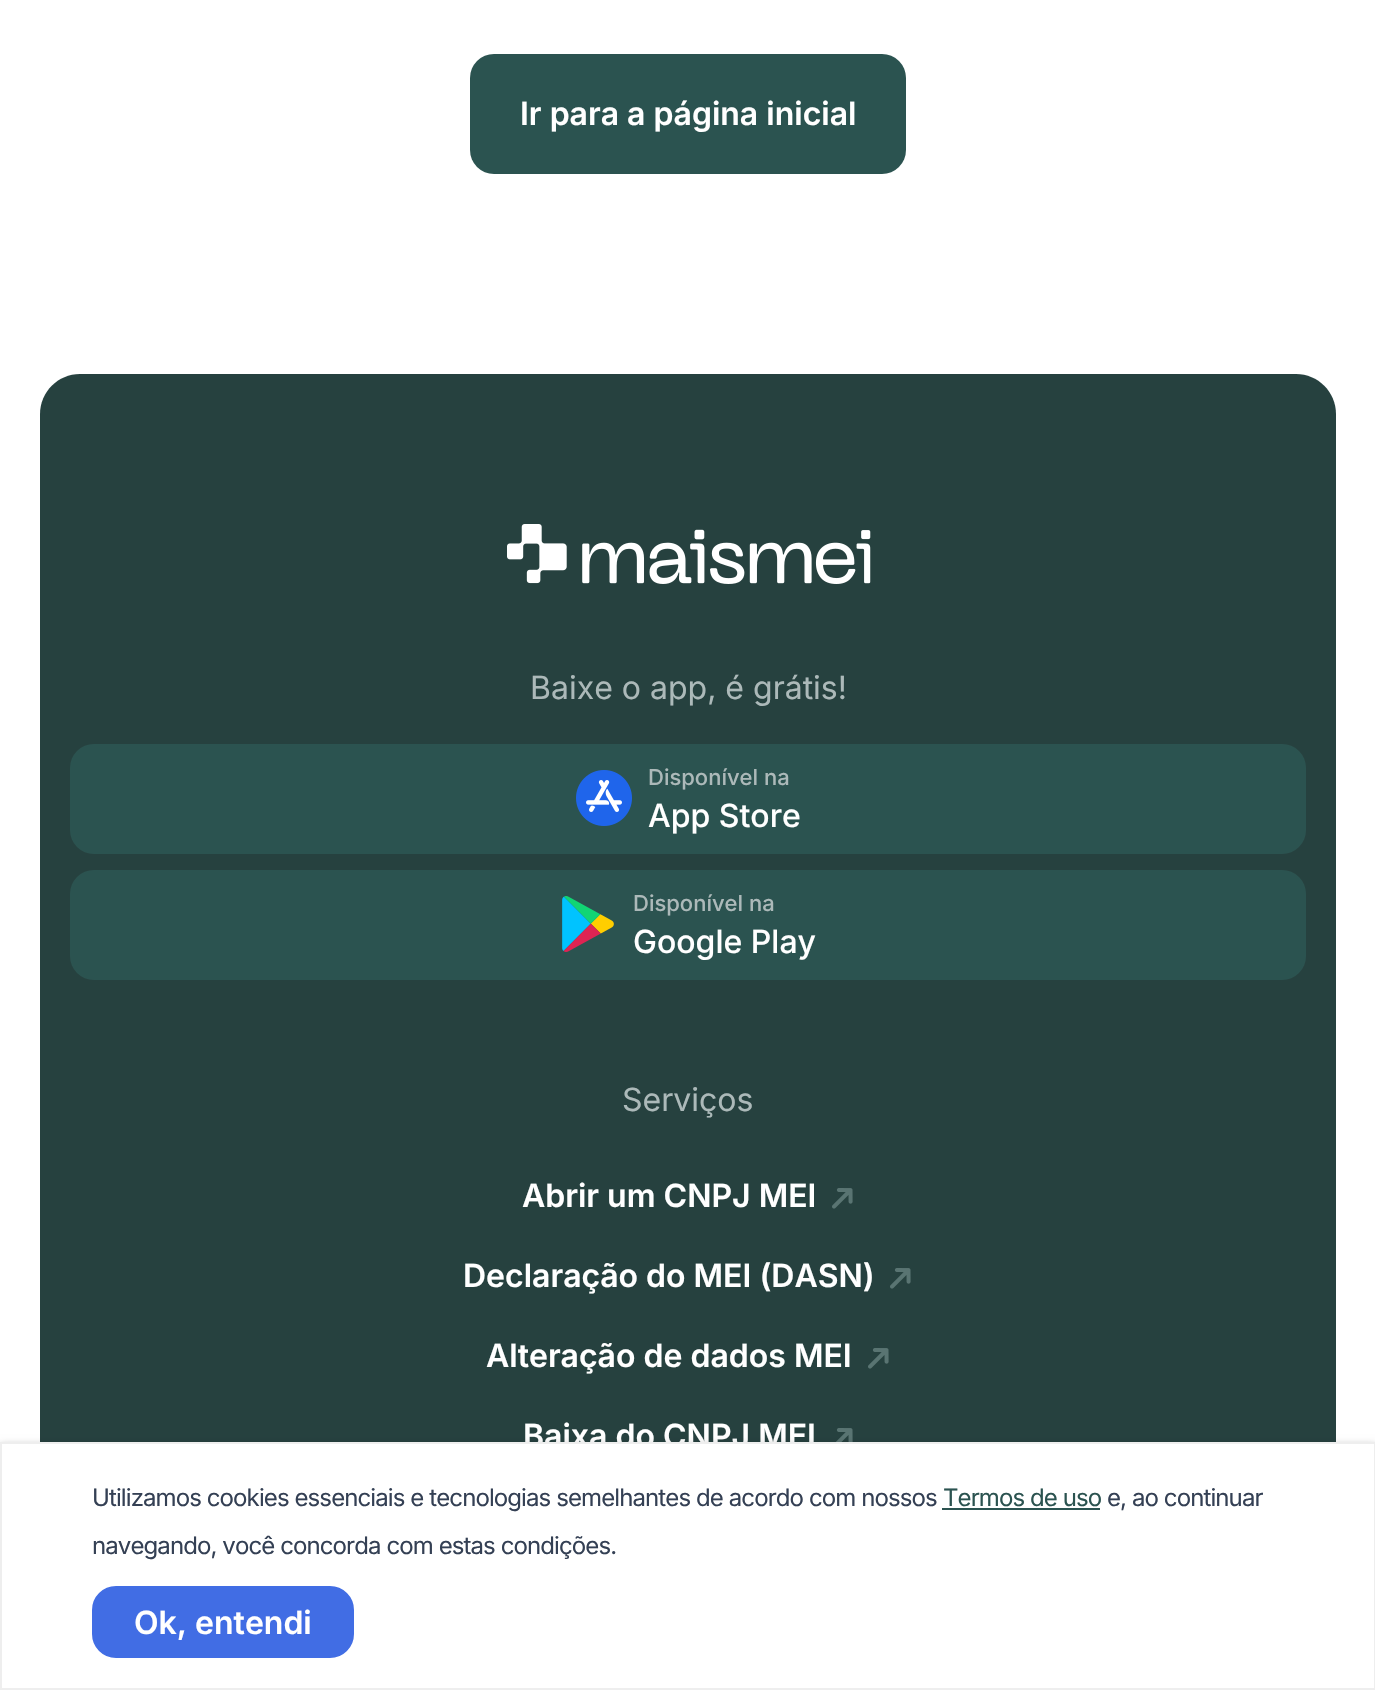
void draw(SkCanvas* c) {
SkPaint p;
p.setAntiAlias(true);
auto F=[&](const char* family, int weight, float size, bool italic = false){SkFontStyle style(weight, SkFontStyle::kNormal_Width,italic ? SkFontStyle::kItalic_Slant : SkFontStyle::kUpright_Slant);SkFont result(fontMgr->matchFamilyStyle(family, style), size);result.setSubpixel(true);return result;};
auto T=[&](const char* s, float x, float y, const SkFont& font){c->drawString(s, x, y, font, p);};
auto L=[&](const char* s, float x, float y, const SkFont& font, const SkPaint& ink, float letter, float word){std::vector<SkGlyphID> glyphs(font.countText(s, strlen(s), SkTextEncoding::kUTF8));std::vector<float> xs(glyphs.size());font.textToGlyphs(s, strlen(s), SkTextEncoding::kUTF8, glyphs);font.getXPos(glyphs, xs, x);float extra = 0;for (size_t i = 0; i < glyphs.size(); i++) {xs[i] += extra;extra += letter + word * (glyphs[i] == font.unicharToGlyph(' '));}c->drawTextBlob(SkTextBlob::MakeFromPosHGlyphs(glyphs, xs, y, font), 0, 0, ink);};
auto R=[&](float x, float y, float w, float h){c->drawRect(SkRect::MakeXYWH(x, y, w, h), p);};
auto Q=[&](float x, float y, float w, float h, float radius){c->drawRoundRect(SkRect::MakeXYWH(x, y, w, h), radius, radius, p);};
auto I=[&](const char* path, float x, float y, float w, float h){auto image = SkImages::DeferredFromEncodedData(SkData::MakeFromFileName(path));c->drawImageRect(image, SkRect::MakeXYWH(x, y, w, h), SkSamplingOptions());};
auto P=[&](const char* data, bool evenOdd = false){SkPath result = *SkParsePath::FromSVGString(data);if (evenOdd) result.setFillType(SkPathFillType::kEvenOdd);return result;};
c->clear(0xffffffff);
p.setColor(0xff2b5350);
Q(470,54,436,120,24);
auto f1 = F("Inter",600,32);
p.setColor(0xffffffff);
T("Ir para a página inicial",520,125,f1);
p.setColor(0xff26413f);
c->drawPath(P("M80 374h1216c22 0 40 18 40 40v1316h-1296v-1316c0-22 18-40 40-40z"),p);
I("1.png",507,524,364,60);
auto f2 = F("Inter",400,32);
p.setColor(0xffacb9b9);
T("Baixe o app, é grátis!",530,699,f2);
p.setColor(0xff2b5350);
Q(70,744,1236,110,24);
I("2.png",576,770,56,56);
auto f3 = F("Inter",500,22);
p.setColor(0xffacb9b9);
T("Disponível na",648,785,f3);
auto f4 = F("Inter",500,32);
p.setColor(0xffffffff);
T("App Store",648,827,f4);
p.setColor(0xff2b5350);
Q(70,870,1236,110,24);
I("3.png",562,896,52,56);
p.setColor(0xffacb9b9);
T("Disponível na",633,911,f3);
p.setColor(0xffffffff);
T("Google Play",633,953,f4);
p.setColor(0xffacb9b9);
T("Serviços",622,1111,f2);
p.setColor(0xffffffff);
T("Abrir um CNPJ MEI",522,1207,f1);
I("4.png",832,1188,21,21);
T("Declaração do MEI (DASN)",463,1287,f1);
I("4.png",890,1268,21,21);
T("Alteração de dados MEI",486,1367,f1);
I("4.png",868,1348,21,21);
T("Baixa do CNPJ MEI",523,1447,f1);
I("5.png",835,1428,18,14);
p.setColor(0x66000000);
p.setMaskFilter(SkMaskFilter::MakeBlur(kNormal_SkBlurStyle, 4));
c->drawRect(SkRect::MakeXYWH(0,1446,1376,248),p);
p.setMaskFilter(nullptr);
p.setColor(0xffffffff);
c->drawRect(SkRect::MakeXYWH(1,1443,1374,246),p);
p.setStroke(true);
p.setStrokeWidth(2);
p.setColor(0xffeeeeee);
c->drawRect(SkRect::MakeXYWH(1,1443,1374,246),p);
auto f5 = F("Inter",400,24);
p.setStroke(false);
p.setColor(0xff344054);
L("Utilizamos cookies essenciais e tecnologias semelhantes de acordo com nossos",92,1506,f5,p,-.9,0);
p.setColor(0xff2b5350);
L("Termos de uso",943,1506,f5,p,-.9,0);
R(942,1508,158,2);
p.setColor(0xff344054);
L("e, ao continuar",1107,1506,f5,p,-.9,0);
L("navegando, você concorda com estas condições.",92,1554,f5,p,-.9,0);
p.setColor(0xff416de4);
c->drawRoundRect(SkRect::MakeXYWH(93,1587,260,70),23,23,p);
p.setStroke(true);
c->drawRoundRect(SkRect::MakeXYWH(93,1587,260,70),23,23,p);
p.setStroke(false);
p.setColor(0xffffffff);
T("Ok, entendi",134,1634,f1);
}
